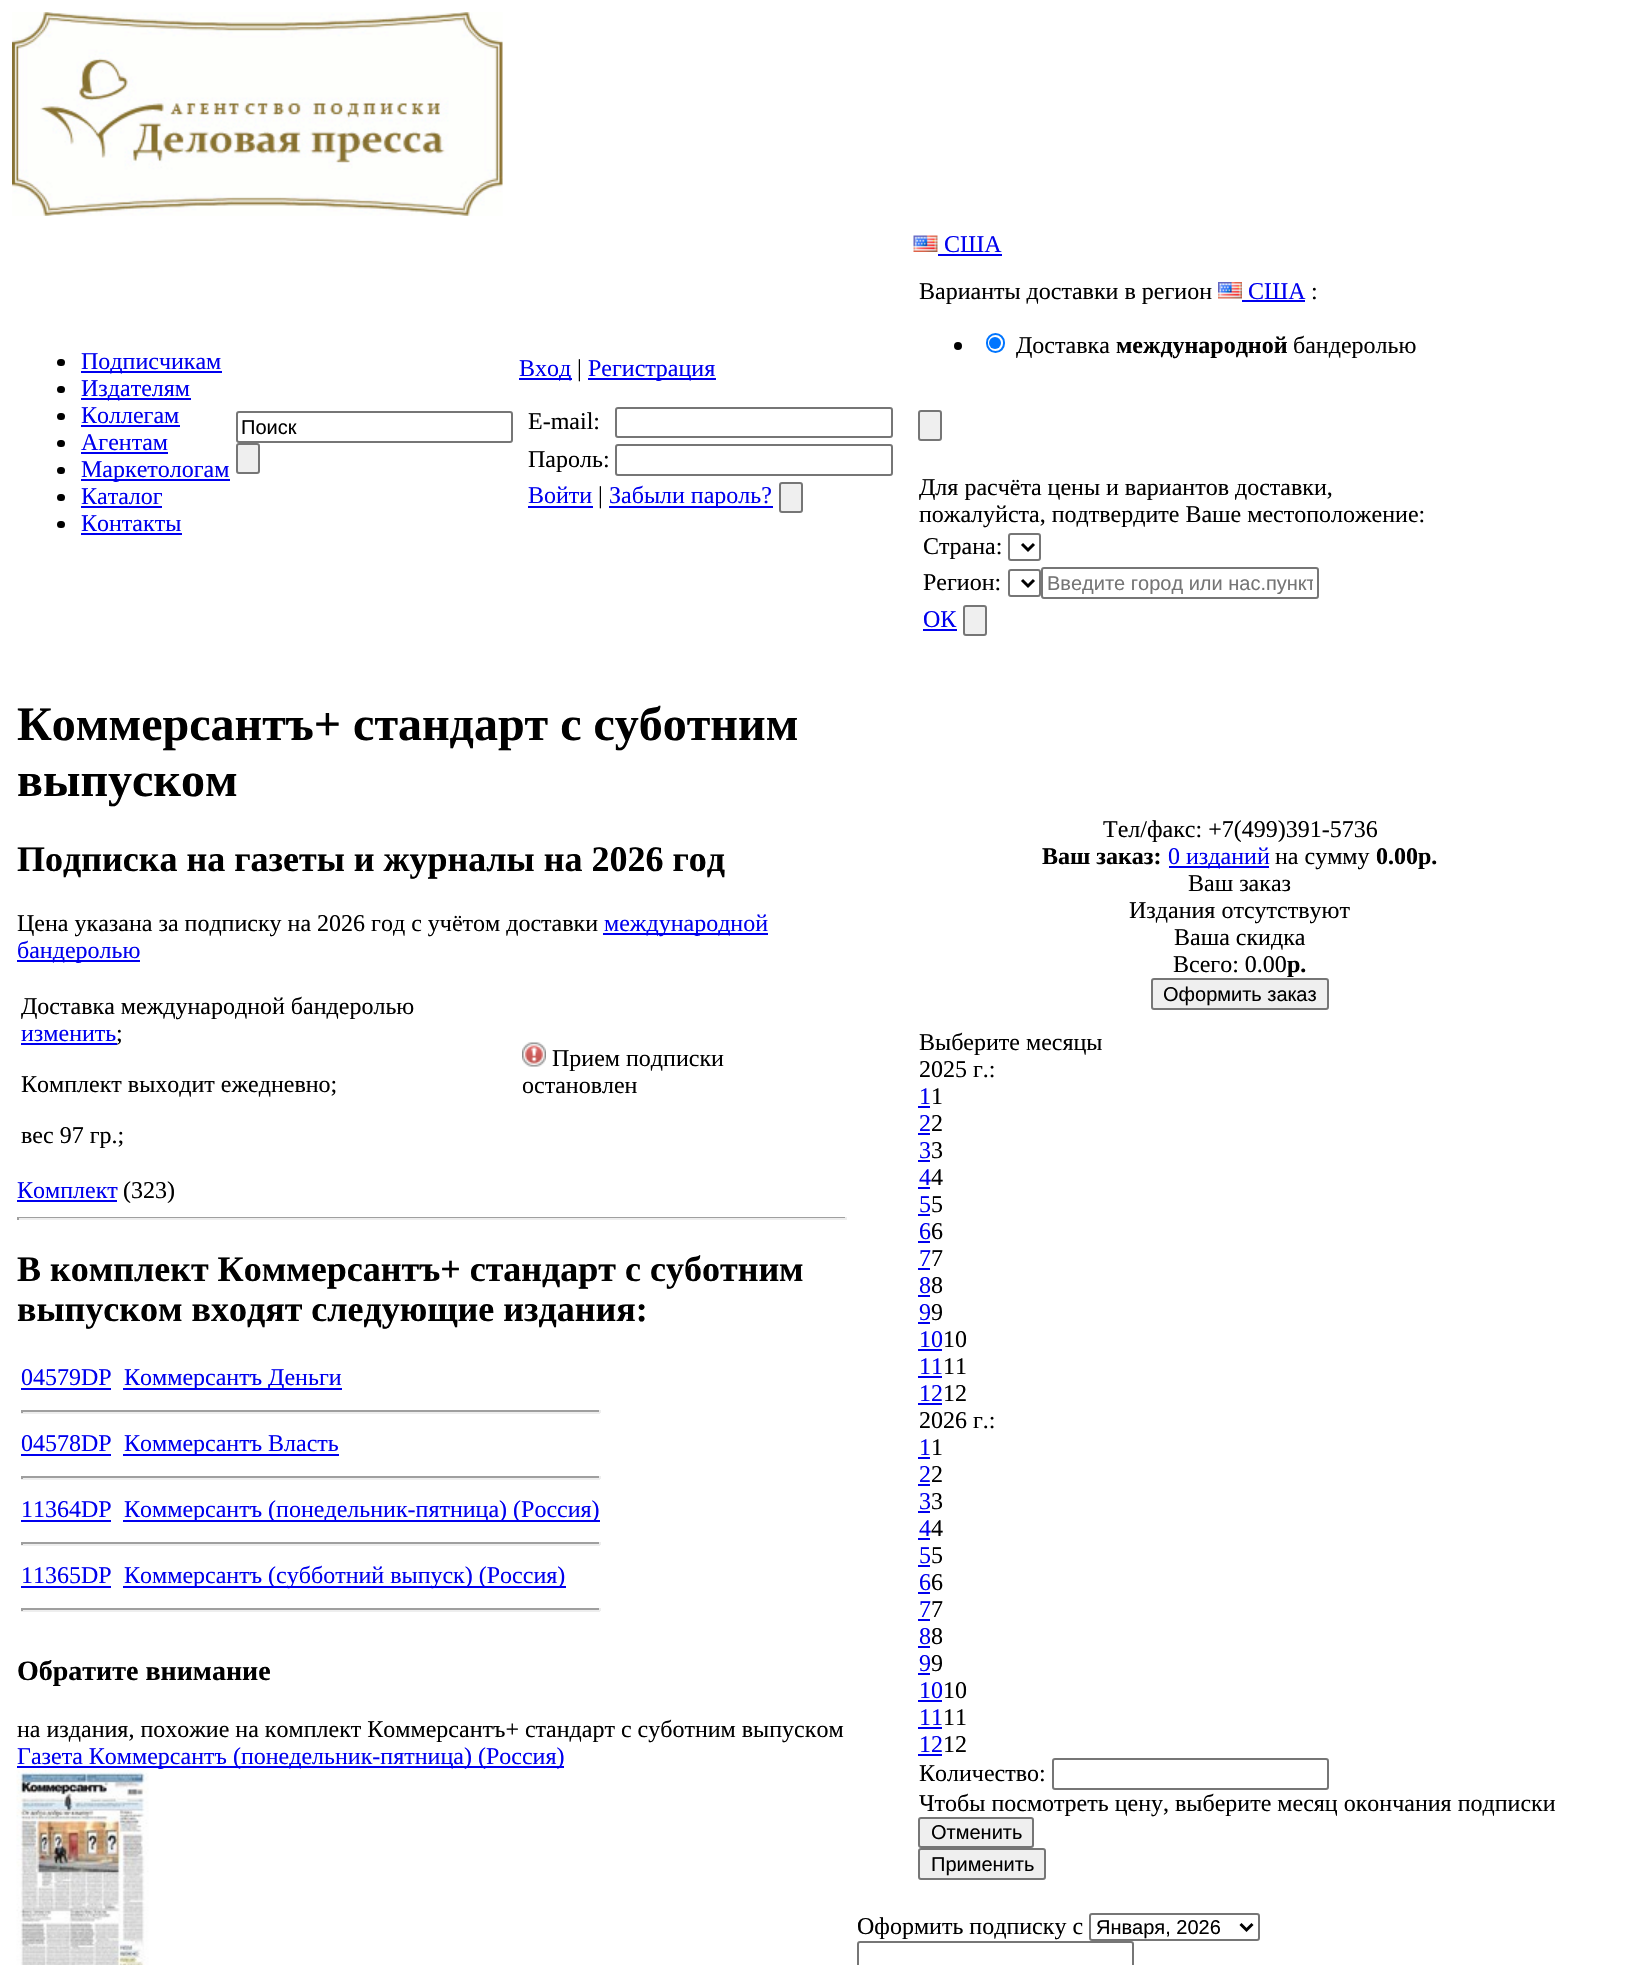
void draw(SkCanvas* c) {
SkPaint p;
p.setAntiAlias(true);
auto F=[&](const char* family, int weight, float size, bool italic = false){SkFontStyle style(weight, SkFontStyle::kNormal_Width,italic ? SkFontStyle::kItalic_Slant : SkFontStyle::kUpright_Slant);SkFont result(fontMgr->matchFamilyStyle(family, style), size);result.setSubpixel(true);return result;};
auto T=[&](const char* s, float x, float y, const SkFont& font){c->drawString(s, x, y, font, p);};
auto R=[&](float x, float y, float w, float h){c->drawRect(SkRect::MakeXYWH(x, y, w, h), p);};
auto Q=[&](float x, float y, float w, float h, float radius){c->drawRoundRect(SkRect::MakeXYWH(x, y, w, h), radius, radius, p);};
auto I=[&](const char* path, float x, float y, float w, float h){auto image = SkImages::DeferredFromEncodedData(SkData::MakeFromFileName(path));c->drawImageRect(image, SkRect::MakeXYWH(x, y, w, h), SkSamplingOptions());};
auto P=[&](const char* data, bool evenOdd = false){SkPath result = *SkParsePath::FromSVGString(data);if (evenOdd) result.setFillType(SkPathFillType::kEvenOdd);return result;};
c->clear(0xffffffff);
I("1.png",12,12,491,204);
p.setColor(0xff000000);
Q(57,359,8,7,3.5);
p.setColor(0xff0000ee);
R(81,371,141,2);
auto f1 = F("Liberation Serif",400,24);
T("Подписчикам",81,369,f1);
p.setColor(0xff000000);
Q(57,386,8,7,3.5);
p.setColor(0xff0000ee);
R(81,398,110,2);
T("Издателям",81,396,f1);
p.setColor(0xff000000);
Q(57,413,8,7,3.5);
p.setColor(0xff0000ee);
T("Коллегам",81,423,f1);
R(81,425,99,2);
p.setColor(0xff000000);
Q(57,440,8,7,3.5);
p.setColor(0xff0000ee);
T("Агентам",81,450,f1);
R(81,452,87,2);
p.setColor(0xff000000);
Q(57,467,8,7,3.5);
p.setColor(0xff0000ee);
R(81,479,149,2);
T("Маркетологам",81,477,f1);
p.setColor(0xff000000);
Q(57,494,8,7,3.5);
p.setColor(0xff0000ee);
T("Каталог",81,504,f1);
R(81,506,81,2);
p.setColor(0xff000000);
Q(57,521,8,7,3.5);
p.setColor(0xff0000ee);
T("Контакты",81,531,f1);
R(81,533,101,2);
p.setStroke(true);
p.setStrokeWidth(2);
p.setColor(0xff767676);
c->drawRoundRect(SkRect::MakeXYWH(237,412,275,30),2,2,p);
auto f2 = F("Liberation Sans",400,20);
p.setStroke(false);
p.setColor(0xff000000);
T("Поиск",241,434,f2);
p.setColor(0xffefefef);
c->drawRoundRect(SkRect::MakeXYWH(237,444,22,29),2,2,p);
p.setStroke(true);
p.setColor(0xff767676);
c->drawRoundRect(SkRect::MakeXYWH(237,444,22,29),2,2,p);
p.setStroke(false);
p.setColor(0xff0000ee);
R(519,378,53,2);
T("Вход",519,376,f1);
p.setColor(0xff000000);
T("|",577,376,f1);
p.setColor(0xff0000ee);
R(588,378,128,2);
T("Регистрация",588,376,f1);
p.setColor(0xff000000);
T("E-mail:",528,429,f1);
p.setStroke(true);
p.setColor(0xff767676);
c->drawRoundRect(SkRect::MakeXYWH(616,408,276,29),2,2,p);
p.setStroke(false);
p.setColor(0xff000000);
T("Пароль:",528,467,f1);
p.setStroke(true);
p.setColor(0xff767676);
c->drawRoundRect(SkRect::MakeXYWH(616,445,276,30),2,2,p);
p.setStroke(false);
p.setColor(0xff0000ee);
T("Войти",528,503,f1);
R(528,506,65,2);
p.setColor(0xff000000);
T("|",598,503,f1);
p.setColor(0xff0000ee);
R(609,506,164,2);
T("Забыли пароль?",609,503,f1);
p.setColor(0xffefefef);
c->drawRoundRect(SkRect::MakeXYWH(780,483,22,29),2,2,p);
p.setStroke(true);
p.setColor(0xff767676);
c->drawRoundRect(SkRect::MakeXYWH(780,483,22,29),2,2,p);
I("2.png",913,235,25,17);
p.setStroke(false);
p.setColor(0xff0000ee);
T("США",944,252,f1);
R(938,254,64,2);
p.setColor(0xff000000);
T("Варианты доставки в регион",919,299,f1);
I("3.png",1218,282,24,17);
p.setColor(0xff0000ee);
T("США",1248,299,f1);
R(1242,300,63,2);
p.setColor(0xff000000);
T(":",1311,299,f1);
c->drawCircle(958,346,4,p);
p.setStroke(true);
p.setColor(0xff0075ff);
c->drawRoundRect(SkRect::MakeXYWH(987,334,17,18),8.5,8.5,p);
p.setStroke(false);
c->drawCircle(995,343,6,p);
p.setColor(0xff000000);
T("Доставка",1016,353,f1);
auto f3 = F("Liberation Serif",700,24);
T("международной",1116,353,f3);
T("бандеролью",1293,353,f1);
p.setColor(0xffefefef);
c->drawRoundRect(SkRect::MakeXYWH(919,411,22,29),2,2,p);
p.setStroke(true);
p.setColor(0xff767676);
c->drawRoundRect(SkRect::MakeXYWH(919,411,22,29),2,2,p);
p.setStroke(false);
p.setColor(0xff000000);
T("Для расчёта цены и вариантов доставки,",919,495,f1);
T("пожалуйста, подтвердите Ваше местоположение:",919,522,f1);
T("Страна:",923,554,f1);
p.setStroke(true);
p.setColor(0xff767676);
c->drawRoundRect(SkRect::MakeXYWH(1009,534,31,26),2,2,p);
p.setStrokeWidth(3);
p.setColor(0xff000000);
c->drawPath(P("M1022 544l6 6l6-6"),p);
p.setStroke(false);
T("Регион:",923,590,f1);
p.setStroke(true);
p.setStrokeWidth(2);
p.setColor(0xff767676);
c->drawRoundRect(SkRect::MakeXYWH(1009,570,31,26),2,2,p);
p.setStrokeWidth(3);
p.setColor(0xff000000);
c->drawPath(P("M1022 580l6 6l6-6"),p);
p.setStrokeWidth(2);
p.setColor(0xff767676);
c->drawRoundRect(SkRect::MakeXYWH(1042,568,276,30),2,2,p);
c->save();
c->clipRect(SkRect::MakeXYWH(1047,572,266,22));
p.setStroke(false);
p.setColor(0xff757575);
T("Введите город или нас.пункт",1047,590,f2);
c->restore();
p.setColor(0xff0000ee);
T("ОК",923,627,f1);
R(923,629,34,2);
p.setColor(0xffefefef);
c->drawRoundRect(SkRect::MakeXYWH(964,606,22,29),2,2,p);
p.setStroke(true);
p.setColor(0xff767676);
c->drawRoundRect(SkRect::MakeXYWH(964,606,22,29),2,2,p);
auto f4 = F("Liberation Serif",700,48);
p.setStroke(false);
p.setColor(0xff000000);
T("Коммерсантъ+ стандарт с суботним",17,740,f4);
T("выпуском",17,796,f4);
auto f5 = F("Liberation Serif",700,36);
T("Подписка на газеты и журналы на 2026 год",17,871,f5);
T("Цена указана за подписку на 2026 год с учётом доставки",17,931,f1);
p.setColor(0xff0000ee);
R(603,933,165,2);
T("международной",604,931,f1);
R(17,960,123,2);
T("бандеролью",17,958,f1);
p.setColor(0xff000000);
T("Доставка международной бандеролью",21,1014,f1);
p.setColor(0xff0000ee);
T("изменить",21,1041,f1);
R(21,1043,96,2);
p.setColor(0xff000000);
T(";",116,1041,f1);
T("Комплект выходит ежедневно;",21,1092,f1);
T("вес 97 гр.;",21,1143,f1);
I("4.png",522,1042,24,25);
T("Прием подписки",552,1066,f1);
T("остановлен",522,1093,f1);
p.setColor(0xff0000ee);
T("Комплект",17,1198,f1);
R(17,1200,100,2);
p.setColor(0xff000000);
T("(323)",123,1198,f1);
p.setColor(0xff9f9f9f);
R(17,1217,829,1);
p.setColor(0xffeeeeee);
R(845,1217,2,3);
R(17,1218,829,2);
p.setColor(0xff9f9f9f);
R(17,1217,2,3);
p.setColor(0xff000000);
T("В комплект Коммерсантъ+ стандарт с суботним",17,1281,f5);
T("выпуском входят следующие издания:",17,1321,f5);
p.setColor(0xff0000ee);
T("04579DP",21,1385,f1);
R(21,1388,90,2);
R(123,1388,219,2);
T("Коммерсантъ Деньги",124,1385,f1);
p.setColor(0xff9f9f9f);
R(21,1410,579,2);
p.setColor(0xffeeeeee);
R(599,1410,2,3);
R(21,1412,579,2);
p.setColor(0xff9f9f9f);
R(21,1410,2,3);
p.setColor(0xff0000ee);
T("04578DP",21,1451,f1);
R(21,1454,90,2);
R(123,1454,216,2);
T("Коммерсантъ Власть",124,1451,f1);
p.setColor(0xff9f9f9f);
R(21,1476,579,2);
p.setColor(0xffeeeeee);
R(599,1476,2,3);
R(21,1478,579,2);
p.setColor(0xff9f9f9f);
R(21,1476,2,3);
p.setColor(0xff0000ee);
T("11364DP",21,1517,f1);
R(21,1520,90,2);
R(123,1520,477,2);
T("Коммерсантъ (понедельник-пятница) (Россия)",124,1517,f1);
p.setColor(0xff9f9f9f);
R(21,1542,579,2);
p.setColor(0xffeeeeee);
R(599,1542,2,3);
R(21,1544,579,2);
p.setColor(0xff9f9f9f);
R(21,1542,2,3);
p.setColor(0xff0000ee);
T("11365DP",21,1583,f1);
R(21,1586,90,2);
R(123,1586,443,2);
T("Коммерсантъ (субботний выпуск) (Россия)",124,1583,f1);
p.setColor(0xff9f9f9f);
R(21,1608,579,2);
p.setColor(0xffeeeeee);
R(599,1608,2,3);
R(21,1610,579,2);
p.setColor(0xff9f9f9f);
R(21,1608,2,3);
auto f6 = F("Liberation Serif",700,28);
p.setColor(0xff000000);
T("Обратите внимание",17,1680,f6);
T("на издания, похожие на комплект Коммерсантъ+ стандарт с суботним выпуском",17,1737,f1);
p.setColor(0xff0000ee);
R(17,1766,547,2);
T("Газета Коммерсантъ (понедельник-пятница) (Россия)",17,1764,f1);
I("5.png",16,1770,133,195);
p.setColor(0xff000000);
T("Тел/факс: +7(499)391-5736",1103,837,f1);
T("Ваш заказ:",1042,864,f3);
p.setColor(0xff0000ee);
R(1169,866,100,2);
T("0 изданий",1168,864,f1);
p.setColor(0xff000000);
T("на сумму",1275,864,f1);
T("0.00р.",1376,864,f3);
T("Ваш заказ",1188,891,f1);
T("Издания отсутствуют",1129,918,f1);
T("Ваша скидка",1174,945,f1);
T("Всего: 0.00",1173,972,f1);
T("р.",1287,972,f3);
p.setColor(0xffefefef);
c->drawRoundRect(SkRect::MakeXYWH(1152,979,176,30),2,2,p);
p.setStroke(true);
p.setColor(0xff767676);
c->drawRoundRect(SkRect::MakeXYWH(1152,979,176,30),2,2,p);
p.setStroke(false);
p.setColor(0xff000000);
T("Оформить заказ",1163,1001,f2);
T("Выберите месяцы",919,1050,f1);
T("2025 г.:",919,1077,f1);
p.setColor(0xff0000ee);
T("1",919,1104,f1);
R(918,1106,12,2);
p.setColor(0xff000000);
T("1",931,1104,f1);
p.setColor(0xff0000ee);
T("2",919,1131,f1);
R(918,1133,12,2);
p.setColor(0xff000000);
T("2",931,1131,f1);
p.setColor(0xff0000ee);
T("3",919,1158,f1);
R(918,1160,12,2);
p.setColor(0xff000000);
T("3",931,1158,f1);
p.setColor(0xff0000ee);
T("4",919,1185,f1);
R(918,1187,12,2);
p.setColor(0xff000000);
T("4",931,1185,f1);
p.setColor(0xff0000ee);
T("5",919,1212,f1);
R(918,1214,12,2);
p.setColor(0xff000000);
T("5",931,1212,f1);
p.setColor(0xff0000ee);
T("6",919,1239,f1);
R(918,1241,12,2);
p.setColor(0xff000000);
T("6",931,1239,f1);
p.setColor(0xff0000ee);
T("7",919,1266,f1);
R(918,1268,12,2);
p.setColor(0xff000000);
T("7",931,1266,f1);
p.setColor(0xff0000ee);
T("8",919,1293,f1);
R(918,1295,12,2);
p.setColor(0xff000000);
T("8",931,1293,f1);
p.setColor(0xff0000ee);
T("9",919,1320,f1);
R(918,1322,12,2);
p.setColor(0xff000000);
T("9",931,1320,f1);
p.setColor(0xff0000ee);
T("10",919,1347,f1);
R(918,1349,24,2);
p.setColor(0xff000000);
T("10",943,1347,f1);
p.setColor(0xff0000ee);
T("11",919,1374,f1);
R(918,1376,24,2);
p.setColor(0xff000000);
T("11",943,1374,f1);
p.setColor(0xff0000ee);
T("12",919,1401,f1);
R(918,1403,24,2);
p.setColor(0xff000000);
T("12",943,1401,f1);
T("2026 г.:",919,1428,f1);
p.setColor(0xff0000ee);
T("1",919,1455,f1);
R(918,1457,12,2);
p.setColor(0xff000000);
T("1",931,1455,f1);
p.setColor(0xff0000ee);
T("2",919,1482,f1);
R(918,1484,12,2);
p.setColor(0xff000000);
T("2",931,1482,f1);
p.setColor(0xff0000ee);
T("3",919,1509,f1);
R(918,1511,12,2);
p.setColor(0xff000000);
T("3",931,1509,f1);
p.setColor(0xff0000ee);
T("4",919,1536,f1);
R(918,1538,12,2);
p.setColor(0xff000000);
T("4",931,1536,f1);
p.setColor(0xff0000ee);
T("5",919,1563,f1);
R(918,1565,12,2);
p.setColor(0xff000000);
T("5",931,1563,f1);
p.setColor(0xff0000ee);
T("6",919,1590,f1);
R(918,1592,12,2);
p.setColor(0xff000000);
T("6",931,1590,f1);
p.setColor(0xff0000ee);
T("7",919,1617,f1);
R(918,1619,12,2);
p.setColor(0xff000000);
T("7",931,1617,f1);
p.setColor(0xff0000ee);
T("8",919,1644,f1);
R(918,1646,12,2);
p.setColor(0xff000000);
T("8",931,1644,f1);
p.setColor(0xff0000ee);
T("9",919,1671,f1);
R(918,1673,12,2);
p.setColor(0xff000000);
T("9",931,1671,f1);
p.setColor(0xff0000ee);
T("10",919,1698,f1);
R(918,1700,24,2);
p.setColor(0xff000000);
T("10",943,1698,f1);
p.setColor(0xff0000ee);
T("11",919,1725,f1);
R(918,1727,24,2);
p.setColor(0xff000000);
T("11",943,1725,f1);
p.setColor(0xff0000ee);
T("12",919,1752,f1);
R(918,1754,24,2);
p.setColor(0xff000000);
T("12",943,1752,f1);
T("Количество:",919,1781,f1);
p.setStroke(true);
p.setColor(0xff767676);
c->drawRoundRect(SkRect::MakeXYWH(1053,1759,275,30),2,2,p);
p.setStroke(false);
p.setColor(0xff000000);
T("Чтобы посмотреть цену, выберите месяц окончания подписки",919,1811,f1);
p.setColor(0xffefefef);
c->drawRoundRect(SkRect::MakeXYWH(919,1818,114,29),2,2,p);
p.setStroke(true);
p.setColor(0xff767676);
c->drawRoundRect(SkRect::MakeXYWH(919,1818,114,29),2,2,p);
p.setStroke(false);
p.setColor(0xff000000);
T("Отменить",931,1839,f2);
p.setColor(0xffefefef);
c->drawRoundRect(SkRect::MakeXYWH(919,1849,126,30),2,2,p);
p.setStroke(true);
p.setColor(0xff767676);
c->drawRoundRect(SkRect::MakeXYWH(919,1849,126,30),2,2,p);
p.setStroke(false);
p.setColor(0xff000000);
T("Применить",931,1871,f2);
T("Оформить подписку с",857,1934,f1);
p.setStroke(true);
p.setColor(0xff767676);
c->drawRoundRect(SkRect::MakeXYWH(1090,1914,169,26),2,2,p);
p.setStrokeWidth(3);
p.setColor(0xff000000);
c->drawPath(P("M1240.5 1924l6 6l6-6"),p);
p.setStroke(false);
T("Января, 2026",1096,1934,f2);
p.setStroke(true);
p.setStrokeWidth(2);
p.setColor(0xff767676);
c->drawRoundRect(SkRect::MakeXYWH(858,1942,275,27),2,2,p);
}
